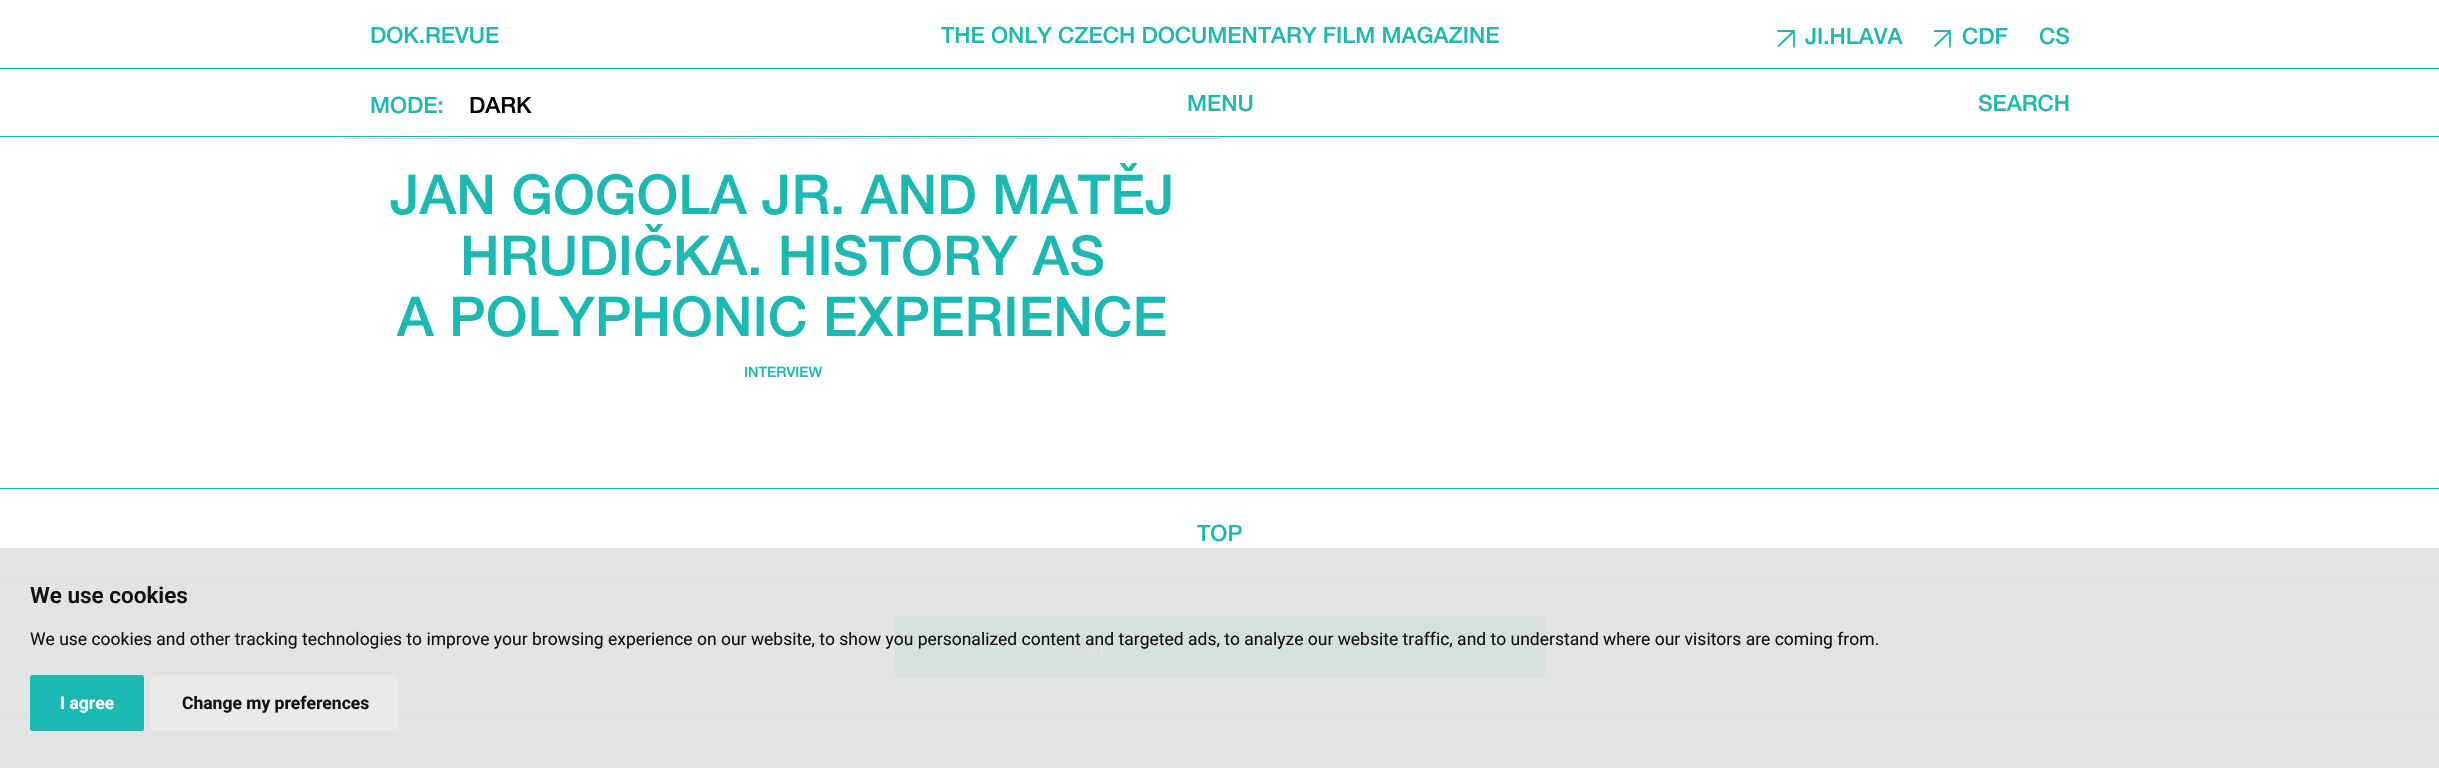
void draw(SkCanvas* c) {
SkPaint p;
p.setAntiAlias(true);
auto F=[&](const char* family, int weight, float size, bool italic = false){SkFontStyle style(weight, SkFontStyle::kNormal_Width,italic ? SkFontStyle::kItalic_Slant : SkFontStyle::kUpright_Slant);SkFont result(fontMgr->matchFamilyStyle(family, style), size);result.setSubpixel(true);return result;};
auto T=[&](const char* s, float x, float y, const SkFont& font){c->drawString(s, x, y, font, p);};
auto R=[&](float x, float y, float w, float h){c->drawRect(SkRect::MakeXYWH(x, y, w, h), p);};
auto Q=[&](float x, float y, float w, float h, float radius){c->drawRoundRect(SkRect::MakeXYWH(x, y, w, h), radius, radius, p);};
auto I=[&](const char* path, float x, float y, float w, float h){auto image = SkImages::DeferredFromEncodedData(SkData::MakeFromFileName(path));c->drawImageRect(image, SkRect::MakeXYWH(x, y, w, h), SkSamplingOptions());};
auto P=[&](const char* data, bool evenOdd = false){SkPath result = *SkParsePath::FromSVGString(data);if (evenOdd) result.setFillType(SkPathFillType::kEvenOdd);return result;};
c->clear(0xffffffff);
p.setColor(0xffe3e3e3);
R(0,548,2439,220);
p.setColor(0xff1bb9b1);
R(0,68,2439,1);
auto f1 = F("Helvetica Neue",500,22.5);
T("DOK.REVUE",370,43,f1);
T("THE ONLY CZECH DOCUMENTARY FILM MAGAZINE",941,43,f1);
p.setStroke(true);
p.setStrokeWidth(1.8);
c->drawPath(P("M1778 46.5l15.5-15m.5 16v-16.5h-16.5"),p);
p.setStroke(false);
T("JI.HLAVA",1805,44,f1);
p.setStroke(true);
c->drawPath(P("M1934.5 46.5l15.5-15m0 16v-16.5h-16"),p);
p.setStroke(false);
T("CDF",1962,44,f1);
T("CS",2039,44,f1);
R(0,136,2439,1);
T("MODE:",370,113,f1);
p.setColor(0xff000000);
T("DARK",469,113,f1);
p.setColor(0xff1bb9b1);
T("MENU",1187,111,f1);
T("SEARCH",1978,111,f1);
I("1.png",345,138,875,1);
auto f2 = F("Helvetica Neue",500,55);
T("JAN GOGOLA JR. AND MATĚJ",390,214,f2);
T("HRUDIČKA. HISTORY AS",460,275,f2);
T("A POLYPHONIC EXPERIENCE",397,336,f2);
auto f3 = F("Helvetica Neue",500,14.5);
T("INTERVIEW",744,377,f3);
R(0,488,2439,1);
p.setColor(0xffd7dfdf);
R(0,578,2439,1);
p.setColor(0xff1bb9b1);
T("TOP",1197,541,f1);
p.setColor(0xffd7dfdf);
R(0,715,2439,1);
R(895,616,650,62);
p.setStroke(true);
p.setColor(0xffe3e3e3);
c->drawPath(P("M1085.5 656.5l15.5-15m.5 16v-16.5h-16.5"),p);
auto f4 = F("Roboto",600,22.5);
p.setStroke(false);
p.setColor(0xff111111);
T("We use cookies",30,603,f4);
auto f5 = F("Roboto",400,17.5);
T("We use cookies and other tracking technologies to improve your browsing experience on our website, to show you personalized content and targeted ads, to analyze our website traffic, and to understand where our visitors are coming from.",30,645,f5);
p.setColor(0xff1bb9b1);
Q(30,675,114,56,2.5);
auto f6 = F("Roboto",700,17.5);
p.setColor(0xffffffff);
T("I agree",60,709,f6);
p.setColor(0xffeaeaea);
Q(151,675,248,56,2.5);
p.setColor(0xff111111);
T("Change my preferences",182,709,f6);
}
